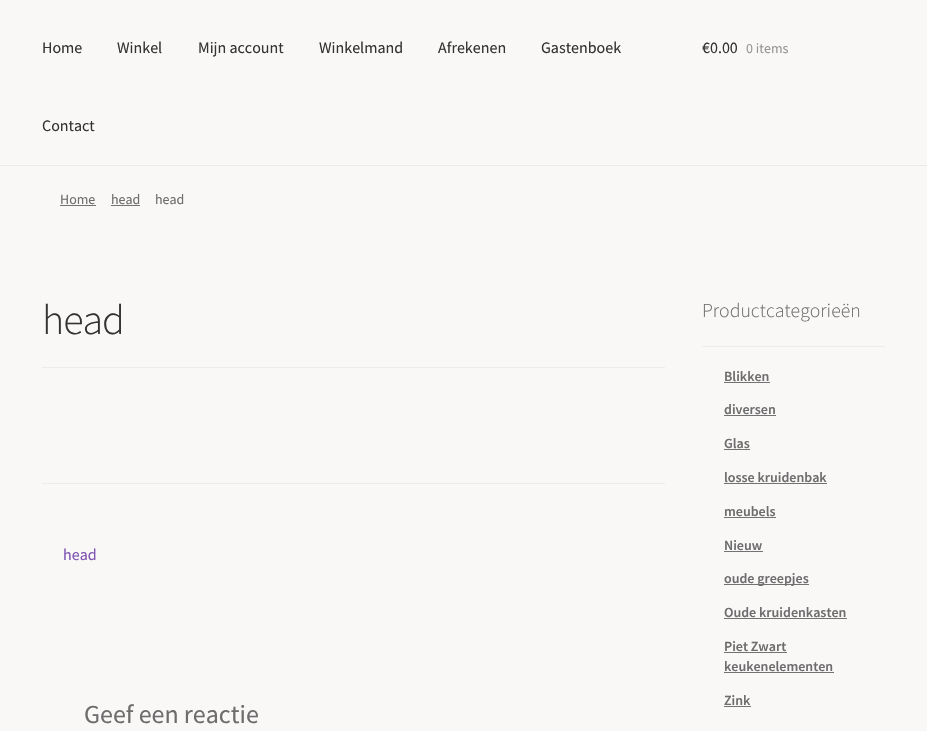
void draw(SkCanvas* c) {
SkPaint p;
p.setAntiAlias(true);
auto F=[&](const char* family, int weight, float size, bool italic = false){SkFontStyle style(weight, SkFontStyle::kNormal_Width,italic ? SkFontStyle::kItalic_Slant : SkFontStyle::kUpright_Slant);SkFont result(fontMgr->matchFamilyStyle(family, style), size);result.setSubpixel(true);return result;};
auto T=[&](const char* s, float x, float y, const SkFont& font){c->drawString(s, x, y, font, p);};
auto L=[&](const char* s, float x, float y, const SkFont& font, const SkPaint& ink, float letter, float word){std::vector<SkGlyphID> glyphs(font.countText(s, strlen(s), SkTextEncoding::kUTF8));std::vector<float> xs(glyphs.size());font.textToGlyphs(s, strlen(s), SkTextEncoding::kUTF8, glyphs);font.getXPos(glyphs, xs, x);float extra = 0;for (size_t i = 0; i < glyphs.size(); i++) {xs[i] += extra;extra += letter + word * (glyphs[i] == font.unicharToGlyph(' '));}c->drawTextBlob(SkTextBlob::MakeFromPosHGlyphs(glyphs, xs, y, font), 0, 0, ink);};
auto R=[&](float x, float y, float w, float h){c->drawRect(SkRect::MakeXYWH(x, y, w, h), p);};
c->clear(0xfffaf7f7);
p.setColor(0xffebe8e8);
R(0,165,927,1);
auto f1 = F("Source Sans Pro",400,16);
p.setColor(0xff333333);
T("Home",42,53,f1);
T("Winkel",117,53,f1);
T("Mijn account",198,53,f1);
T("Winkelmand",319,53,f1);
T("Afrekenen",438,53,f1);
T("Gastenboek",541,53,f1);
T("Contact",42,131,f1);
T("€0.00",702,53,f1);
auto f2 = F("Source Sans Pro",400,14);
p.setColor(0xff979595);
T("0 items",746,53,f2);
p.setColor(0xff6d6d6d);
T("Home",60,204,f2);
p.setColor(0xff727272);
R(60,205,36,1);
p.setColor(0xff6d6d6d);
T("head",111,204,f2);
p.setColor(0xff727272);
R(111,205,29,1);
p.setColor(0xff6d6d6d);
T("head",155,204,f2);
p.setColor(0xffeeebeb);
R(42,367,623,1);
auto f3 = F("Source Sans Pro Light",300,42);
p.setColor(0xff333333);
L("head",42,334,f3,p,-1,0);
p.setColor(0xffeeebeb);
R(42,483,623,1);
p.setColor(0xff7f54b3);
T("head",63,560,f1);
auto f4 = F("Source Sans Pro",400,26);
p.setColor(0xff6d6d6d);
T("Geef een reactie",84,723,f4);
p.setColor(0xffeeebeb);
R(702,346,183,1);
auto f5 = F("Source Sans Pro Light",300,19.75);
p.setColor(0xff6d6d6d);
T("Productcategorieën",702,317,f5);
auto f6 = F("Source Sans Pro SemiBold",600,14);
T("Blikken",724,381,f6);
p.setColor(0xff727272);
R(724,382,46,1);
p.setColor(0xff6d6d6d);
T("diversen",724,414,f6);
p.setColor(0xff727272);
R(724,415,52,1);
p.setColor(0xff6d6d6d);
T("Glas",724,448,f6);
p.setColor(0xff727272);
R(724,449,26,1);
p.setColor(0xff6d6d6d);
T("losse kruidenbak",724,482,f6);
p.setColor(0xff727272);
R(724,483,103,1);
p.setColor(0xff6d6d6d);
T("meubels",724,516,f6);
p.setColor(0xff727272);
R(724,517,52,1);
p.setColor(0xff6d6d6d);
T("Nieuw",724,550,f6);
p.setColor(0xff727272);
R(724,551,39,1);
R(724,584,85,1);
p.setColor(0xff6d6d6d);
T("oude greepjes",724,583,f6);
T("Oude kruidenkasten",724,617,f6);
p.setColor(0xff727272);
R(724,618,123,1);
p.setColor(0xff6d6d6d);
T("Piet Zwart",724,651,f6);
p.setColor(0xff727272);
R(724,652,63,1);
p.setColor(0xff6d6d6d);
T("keukenelementen",724,671,f6);
p.setColor(0xff727272);
R(724,672,110,1);
p.setColor(0xff6d6d6d);
T("Zink",724,705,f6);
p.setColor(0xff727272);
R(724,706,27,1);
}
